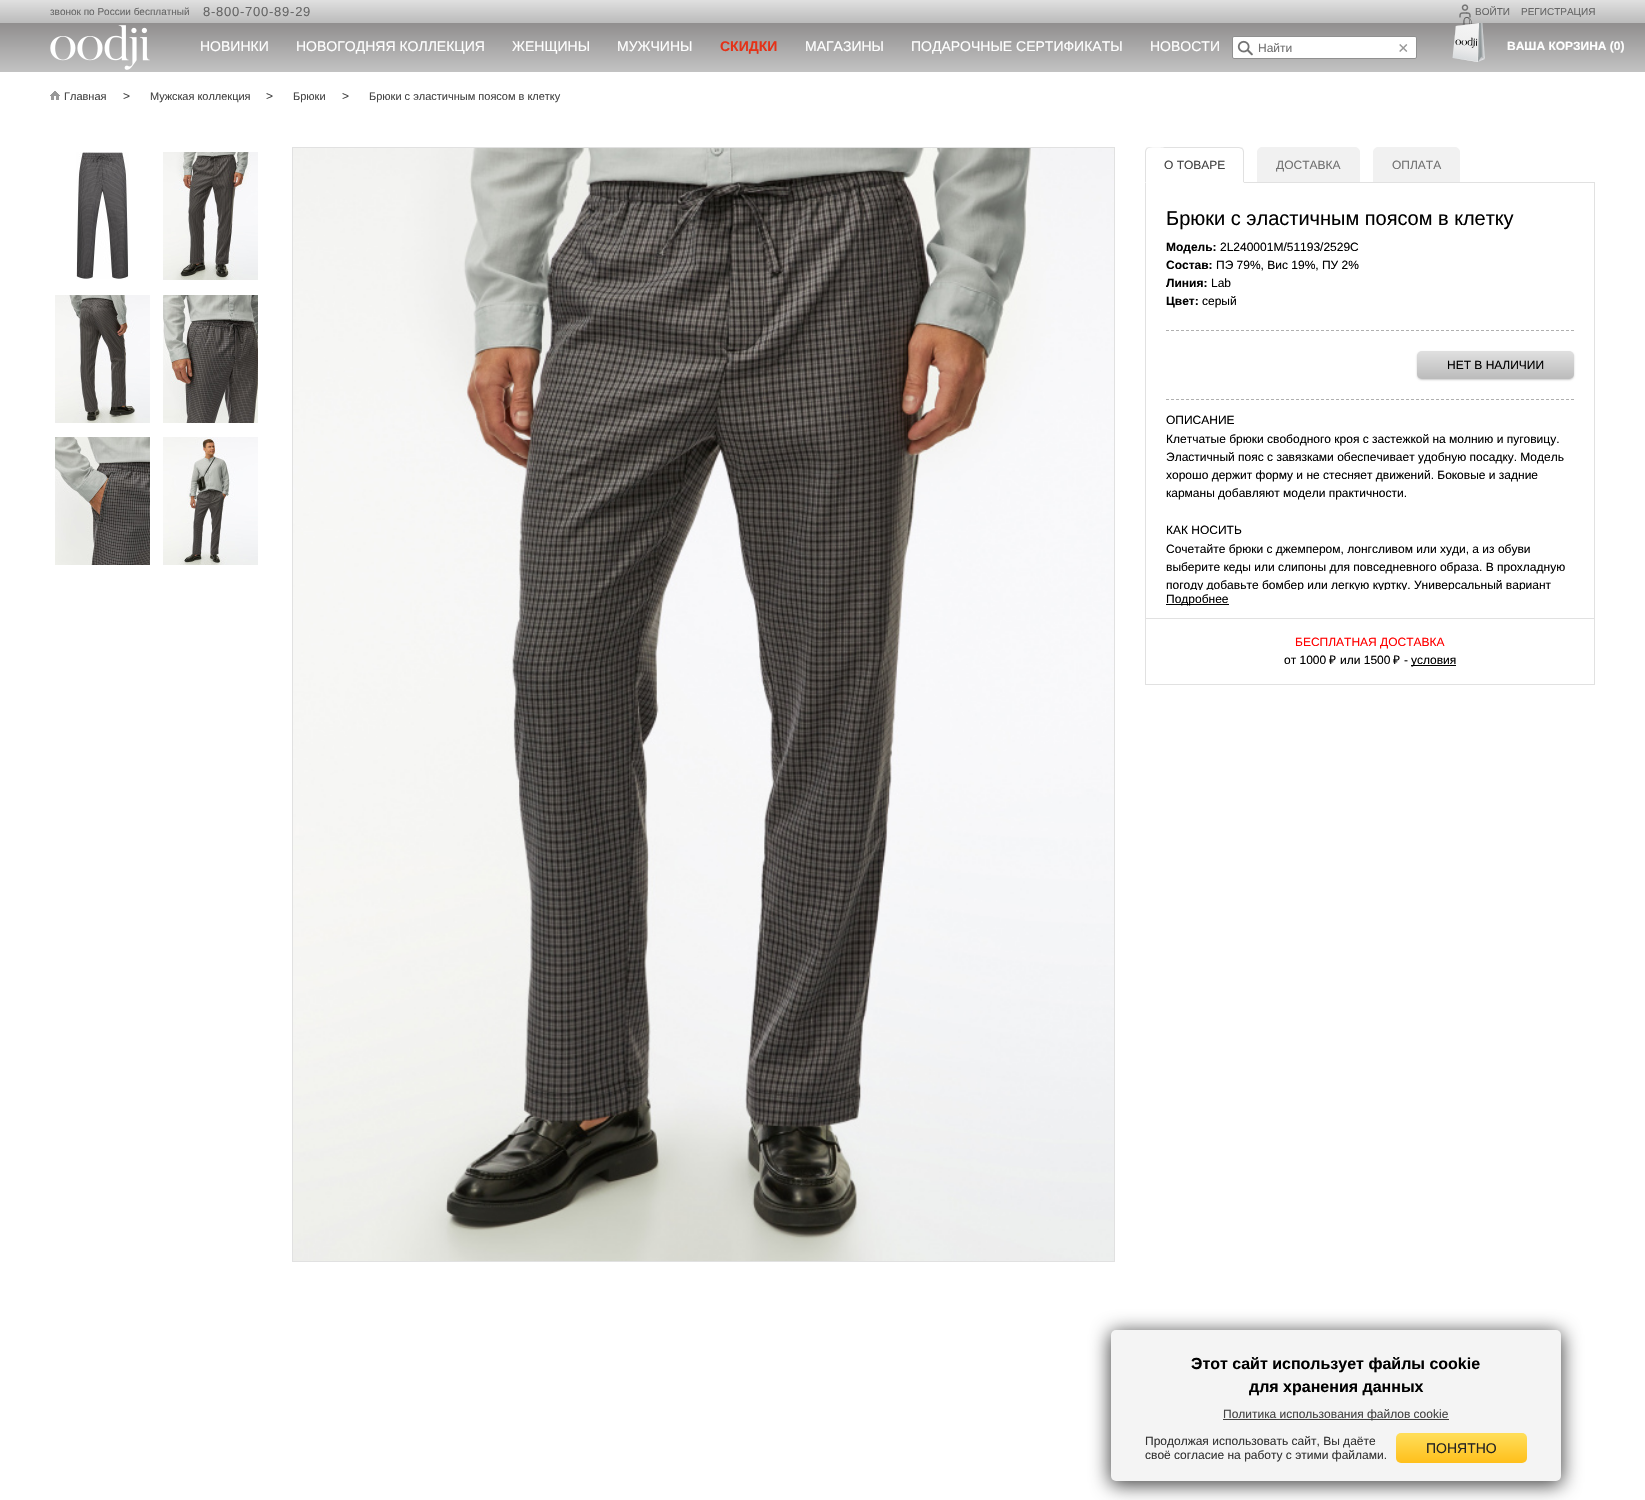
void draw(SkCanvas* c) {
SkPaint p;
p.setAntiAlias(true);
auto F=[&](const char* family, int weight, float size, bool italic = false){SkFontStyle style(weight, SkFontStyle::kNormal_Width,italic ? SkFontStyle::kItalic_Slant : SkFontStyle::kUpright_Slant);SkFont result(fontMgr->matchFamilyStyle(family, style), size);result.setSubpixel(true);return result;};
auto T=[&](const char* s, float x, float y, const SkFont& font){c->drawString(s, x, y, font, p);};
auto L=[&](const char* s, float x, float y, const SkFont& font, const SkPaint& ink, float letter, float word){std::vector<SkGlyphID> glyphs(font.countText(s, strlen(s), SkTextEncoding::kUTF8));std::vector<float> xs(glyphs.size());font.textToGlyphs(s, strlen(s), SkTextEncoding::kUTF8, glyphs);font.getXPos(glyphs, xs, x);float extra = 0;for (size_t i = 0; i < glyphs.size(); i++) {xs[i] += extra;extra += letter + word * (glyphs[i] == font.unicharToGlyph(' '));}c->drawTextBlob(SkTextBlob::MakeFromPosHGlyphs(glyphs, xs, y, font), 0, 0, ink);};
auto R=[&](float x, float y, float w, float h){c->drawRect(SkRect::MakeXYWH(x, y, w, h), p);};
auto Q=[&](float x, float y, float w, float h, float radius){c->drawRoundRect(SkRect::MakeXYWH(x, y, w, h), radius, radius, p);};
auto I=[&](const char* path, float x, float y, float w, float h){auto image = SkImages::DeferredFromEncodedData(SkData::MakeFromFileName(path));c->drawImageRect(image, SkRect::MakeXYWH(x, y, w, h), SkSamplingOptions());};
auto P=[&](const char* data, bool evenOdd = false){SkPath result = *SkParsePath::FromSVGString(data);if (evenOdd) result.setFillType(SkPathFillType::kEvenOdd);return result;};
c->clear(0xffffffff);
{
const SkColor colors[] = {0xffe0e0e0,0xffbbbbbb};
const float stops[] = {0,1};
const SkPoint ends[] = {{823,0}, {823,23}};
p.setShader(SkGradientShader::MakeLinear(ends, colors, stops, 2, SkTileMode::kClamp));
p.setAlpha(255);
}
R(0,0,1645,23);
auto f1 = F("Liberation Sans",400,10);
p.setShader(nullptr);
p.setColor(0xff666666);
T("звонок по России бесплатный",50,15,f1);
auto f2 = F("Liberation Sans",400,13);
L("8-800-700-89-29",203,16,f2,p,.75,0);
{
const SkColor colors[] = {0xff908e8e,0xffc3c3c3};
const float stops[] = {0,1};
const SkPoint ends[] = {{845,23}, {845,72}};
p.setShader(SkGradientShader::MakeLinear(ends, colors, stops, 2, SkTileMode::kClamp));
p.setAlpha(255);
}
R(0,23,1645,49);
I("4.png",1452,17,33,45);
I("1.png",1459,4,12,14);
p.setShader(nullptr);
p.setColor(0xff666666);
T("ВОЙТИ",1475,15,f1);
T("РЕГИСТРАЦИЯ",1521,15,f1);
I("2.png",50,25,100,45);
auto f3 = F("Liberation Sans",400,14);
p.setColor(0xffffffff);
T("НОВИНКИ",200,51,f3);
T("НОВОГОДНЯЯ КОЛЛЕКЦИЯ",296,51,f3);
T("ЖЕНЩИНЫ",512,51,f3);
T("МУЖЧИНЫ",617,51,f3);
auto f4 = F("Liberation Sans",700,14);
p.setColor(0xffe43218);
T("СКИДКИ",720,51,f4);
p.setColor(0xffffffff);
T("МАГАЗИНЫ",805,51,f3);
T("ПОДАРОЧНЫЕ СЕРТИФИКАТЫ",911,51,f3);
T("НОВОСТИ",1150,51,f3);
c->drawRoundRect(SkRect::MakeXYWH(1232.5,36.5,184,22),1.5,1.5,p);
p.setStroke(true);
p.setStrokeWidth(1);
p.setColor(0xff909090);
c->drawRoundRect(SkRect::MakeXYWH(1232.5,36.5,184,22),1.5,1.5,p);
I("3.png",1237,40,16,16);
auto f5 = F("Liberation Sans",400,12);
p.setStroke(false);
p.setColor(0xff717171);
T("Найти",1258,52,f5);
auto f6 = F("Liberation Sans",400,18);
p.setColor(0xff999999);
T("×",1398,54,f6);
auto f7 = F("Liberation Sans",700,12);
p.setColor(0xffffffff);
T("ВАША КОРЗИНА (0)",1507,50,f7);
I("5.png",50,91,10,9);
auto f8 = F("Liberation Sans",400,11);
p.setColor(0xff434343);
T("Главная",64,100,f8);
T(">",123,100,f5);
T("Мужская коллекция",150,100,f8);
T(">",266,100,f5);
T("Брюки",293,100,f8);
T(">",342,100,f5);
T("Брюки с эластичным поясом в клетку",369,100,f8);
I("6.png",76,152,53,127);
I("7.png",163,152,95,128);
I("8.png",55,295,95,128);
I("9.png",163,295,95,128);
I("10.png",55,437,95,128);
I("11.png",163,437,95,128);
p.setStroke(true);
p.setColor(0xffe1e1e1);
c->drawRect(SkRect::MakeXYWH(292.5,147.5,822,1114),p);
I("12.png",293,148,821,1113);
p.setStroke(false);
R(1145,182,1,148);
p.setColor(0xffffffff);
c->drawPath(P("M1150 147h89c3 0 5 2 5 5v31h-99v-31c0-3 2-5 5-5z"),p);
p.setColor(0xffe1e1e1);
c->drawPath(P("M1150 147c-2 0-3 1-4 1l1 1c4-3 17-1 18-1h74l3 1l1-1c-1 0-3-1-4-1z"),p);
c->drawPath(P("M1244 183v-31c0-1.5-.5-3-1.5-3.5l-.5 .5c.5 1 1 2 1 3v30z"),p);
p.setColor(0xffffffff);
c->drawPath(P("M1244 183l-1-1h-97l-1 1z"),p);
p.setColor(0xffe1e1e1);
c->drawPath(P("M1145 183l1-1v-30c0-1 .5-2 1-3l-.5-.5c-1 .5-1.5 2-1.5 3.5z"),p);
p.setColor(0xff434343);
T("О ТОВАРЕ",1164,169,f5);
p.setColor(0xfff1f1f1);
c->drawPath(P("M1262 147.5h93c2.5 0 4.5 2 4.5 4.5v30.5h-102v-30.5c0-2.5 2-4.5 4.5-4.5z"),p);
p.setStroke(true);
c->drawPath(P("M1262 147.5h93c2.5 0 4.5 2 4.5 4.5v30.5h-102v-30.5c0-2.5 2-4.5 4.5-4.5z"),p);
p.setStroke(false);
p.setColor(0xff717171);
T("ДОСТАВКА",1276,169,f5);
p.setColor(0xfff1f1f1);
c->drawPath(P("M1378 147.5h77c2.5 0 4.5 2 4.5 4.5v30.5h-86v-30.5c0-2.5 2-4.5 4.5-4.5z"),p);
p.setStroke(true);
c->drawPath(P("M1378 147.5h77c2.5 0 4.5 2 4.5 4.5v30.5h-86v-30.5c0-2.5 2-4.5 4.5-4.5z"),p);
p.setStroke(false);
p.setColor(0xff717171);
T("ОПЛАТА",1392,169,f5);
p.setColor(0xffe1e1e1);
R(1244,182,351,1);
R(1594,618,1,67);
R(1594,182,1,437);
auto f9 = F("Liberation Sans",400,20);
p.setColor(0xff000000);
T("Брюки с эластичным поясом в клетку",1166,225,f9);
T("Модель:",1166,251,f7);
T("2L240001M/51193/2529C",1220,251,f5);
T("Состав:",1166,269,f7);
T("ПЭ 79%, Вис 19%, ПУ 2%",1216,269,f5);
T("Линия:",1166,287,f7);
T("Lab",1211,287,f5);
T("Цвет:",1166,305,f7);
T("серый",1202,305,f5);
p.setColor(0xffe1e1e1);
R(1145,684,450,1);
R(1145,618,1,67);
R(1145,618,450,1);
R(1145,330,1,289);
p.setStroke(true);
p.setColor(0xffb0b0b0);
p.setPathEffect(SkDashPathEffect::Make({{3,2}}, 0));
c->drawPath(P("M1166 330.5h408"),p);
p.setPathEffect(nullptr);
p.setStroke(false);
p.setColor(0x33000000);
p.setMaskFilter(SkMaskFilter::MakeBlur(kNormal_SkBlurStyle, 1));
c->drawRoundRect(SkRect::MakeXYWH(1417,352,157,28),5,5,p);
p.setMaskFilter(nullptr);
{
const SkColor colors[] = {0xffe0e0e0,0xffbbbbbb};
const float stops[] = {0,1};
const SkPoint ends[] = {{1496,351}, {1496,379}};
p.setShader(SkGradientShader::MakeLinear(ends, colors, stops, 2, SkTileMode::kClamp));
p.setAlpha(255);
}
Q(1417,351,157,28,5);
p.setShader(nullptr);
p.setColor(0xff000000);
T("НЕТ В НАЛИЧИИ",1447,369,f5);
p.setStroke(true);
p.setColor(0xffb0b0b0);
p.setPathEffect(SkDashPathEffect::Make({{3,2}}, 0));
c->drawPath(P("M1166 399.5h408"),p);
p.setPathEffect(nullptr);
p.setStroke(false);
p.setColor(0xff000000);
T("ОПИСАНИЕ",1166,424,f5);
T("Клетчатые брюки свободного кроя с застежкой на молнию и пуговицу.",1166,443,f5);
T("Эластичный пояс с завязками обеспечивает удобную посадку. Модель",1166,461,f5);
T("хорошо держит форму и не стесняет движений. Боковые и задние",1166,479,f5);
T("карманы добавляют модели практичности.",1166,497,f5);
T("КАК НОСИТЬ",1166,534,f5);
T("Сочетайте брюки с джемпером, лонгсливом или худи, а из обуви",1166,553,f5);
T("выберите кеды или слипоны для повседневного образа. В прохладную",1166,571,f5);
c->save();
c->clipRect(SkRect::MakeXYWH(1166,410,408,180));
T("погоду добавьте бомбер или легкую куртку. Универсальный вариант",1166,589,f5);
c->restore();
R(1166,604,63,1);
T("Подробнее",1166,603,f5);
p.setColor(0xffff0000);
T("БЕСПЛАТНАЯ ДОСТАВКА",1295,646,f5);
p.setColor(0xff000000);
T("от 1000",1284,664,f5);
auto f10 = F("Noto Sans",400,12);
T("₽",1329,664,f10);
T("или 1500",1340,664,f5);
T("₽",1393,664,f10);
T("-",1404,664,f5);
R(1411,665,45,1);
T("условия",1411,664,f5);
p.setColor(0xbf000000);
p.setMaskFilter(SkMaskFilter::MakeBlur(kNormal_SkBlurStyle, 9.5));
c->drawRoundRect(SkRect::MakeXYWH(1110,1332,452,153),6,6,p);
p.setMaskFilter(nullptr);
p.setColor(0xfff4f4f4);
Q(1111,1330,450,151,5);
auto f11 = F("Liberation Sans",700,16);
p.setColor(0xff000000);
T("Этот сайт использует файлы cookie",1191,1369,f11);
T("для хранения данных",1249,1392,f11);
p.setColor(0xff404040);
R(1223,1419,226,1);
p.setColor(0xff434343);
T("Политика использования файлов cookie",1223,1418,f5);
p.setColor(0xff343434);
T("Продолжая использовать сайт, Вы даёте",1145,1445,f5);
T("своё согласие на работу с этими файлами.",1145,1459,f5);
{
const SkColor colors[] = {0xffffbf1b,0xffffdd57};
const float stops[] = {0,.93};
const SkPoint ends[] = {{1462,1463}, {1462,1433}};
p.setShader(SkGradientShader::MakeLinear(ends, colors, stops, 2, SkTileMode::kClamp));
p.setAlpha(255);
}
Q(1396,1433,131,30,5);
p.setShader(nullptr);
p.setColor(0xff232323);
T("ПОНЯТНО",1426,1453,f3);
}
